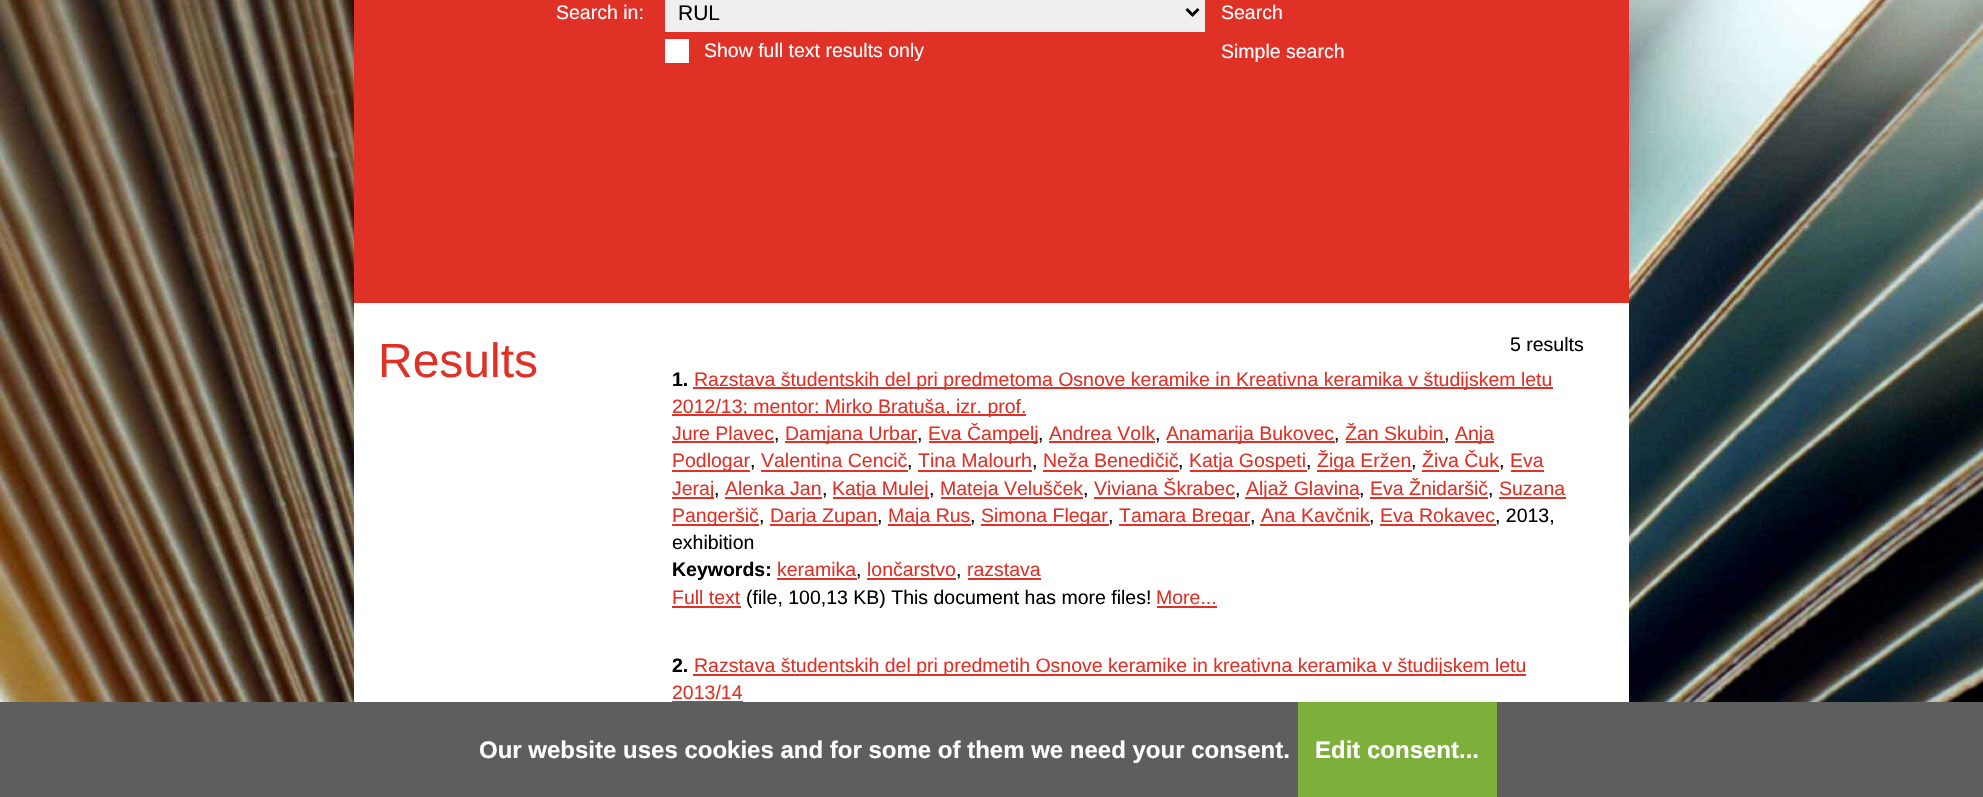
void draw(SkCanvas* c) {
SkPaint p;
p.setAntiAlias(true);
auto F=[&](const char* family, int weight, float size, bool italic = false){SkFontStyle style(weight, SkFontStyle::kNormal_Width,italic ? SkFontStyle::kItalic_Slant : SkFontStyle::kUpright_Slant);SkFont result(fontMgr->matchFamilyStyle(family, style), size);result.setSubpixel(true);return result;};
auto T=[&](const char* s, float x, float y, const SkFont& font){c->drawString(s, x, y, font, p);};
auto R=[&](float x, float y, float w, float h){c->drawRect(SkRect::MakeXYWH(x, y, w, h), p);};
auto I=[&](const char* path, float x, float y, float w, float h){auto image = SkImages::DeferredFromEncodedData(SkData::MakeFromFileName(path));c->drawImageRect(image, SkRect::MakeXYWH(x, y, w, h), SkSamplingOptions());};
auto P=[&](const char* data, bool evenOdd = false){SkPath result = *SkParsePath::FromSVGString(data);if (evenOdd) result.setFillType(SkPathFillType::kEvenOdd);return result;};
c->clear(0xffffffff);
I("1.png",0,0,1983,702);
p.setColor(0xffe03127);
R(354,0,1275,303);
auto f1 = F("Liberation Sans",400,19.5);
p.setColor(0xffffffff);
T("Search in:",556,19,f1);
p.setColor(0xffefefef);
R(665,0,540,32);
p.setStroke(true);
p.setStrokeWidth(3);
p.setColor(0xff000000);
c->drawPath(P("M1186.5 9l6 6l6-6"),p);
auto f2 = F("Liberation Sans",400,21);
p.setStroke(false);
T("RUL",678,20,f2);
p.setColor(0xffffffff);
T("Search",1221,19,f1);
R(665,39,24,24);
T("Show full text results only",704,57,f1);
T("Simple search",1221,58,f1);
R(354,303,1275,399);
auto f3 = F("Liberation Sans",400,48);
p.setColor(0xffe03127);
T("Results",378,377,f3);
p.setColor(0xff000000);
T("5 results",1510,351,f1);
auto f4 = F("Liberation Sans",700,19.5);
T("1.",672,386,f4);
p.setColor(0xffe03127);
R(693,387,860,2);
T("Razstava študentskih del pri predmetoma Osnove keramike in Kreativna keramika v študijskem letu",694,386,f1);
R(672,414,354,2);
T("2012/13; mentor: Mirko Bratuša, izr. prof.",672,413,f1);
T("Jure Plavec",672,440,f1);
R(672,441,102,2);
p.setColor(0xff000000);
T(",",774,440,f1);
p.setColor(0xffe03127);
R(785,441,132,2);
T("Damjana Urbar",785,440,f1);
p.setColor(0xff000000);
T(",",917,440,f1);
p.setColor(0xffe03127);
R(929,441,109,2);
T("Eva Čampelj",928,440,f1);
p.setColor(0xff000000);
T(",",1038,440,f1);
p.setColor(0xffe03127);
T("Andrea Volk",1049,440,f1);
R(1049,441,106,2);
p.setColor(0xff000000);
T(",",1155,440,f1);
p.setColor(0xffe03127);
R(1167,441,168,2);
T("Anamarija Bukovec",1166,440,f1);
p.setColor(0xff000000);
T(",",1334,440,f1);
p.setColor(0xffe03127);
T("Žan Skubin",1345,440,f1);
R(1346,441,99,2);
p.setColor(0xff000000);
T(",",1444,440,f1);
p.setColor(0xffe03127);
R(1455,441,39,2);
T("Anja",1455,440,f1);
R(672,470,78,2);
T("Podlogar",672,467,f1);
p.setColor(0xff000000);
T(",",750,467,f1);
p.setColor(0xffe03127);
T("Valentina Cencič",761,467,f1);
R(761,470,147,2);
p.setColor(0xff000000);
T(",",907,467,f1);
p.setColor(0xffe03127);
T("Tina Malourh",918,467,f1);
R(918,470,114,2);
p.setColor(0xff000000);
T(",",1032,467,f1);
p.setColor(0xffe03127);
T("Neža Benedičič",1043,467,f1);
R(1043,470,136,2);
p.setColor(0xff000000);
T(",",1178,467,f1);
p.setColor(0xffe03127);
R(1190,470,117,2);
T("Katja Gospeti",1189,467,f1);
p.setColor(0xff000000);
T(",",1306,467,f1);
p.setColor(0xffe03127);
R(1317,470,95,2);
T("Žiga Eržen",1317,467,f1);
p.setColor(0xff000000);
T(",",1411,467,f1);
p.setColor(0xffe03127);
T("Živa Čuk",1422,467,f1);
R(1422,470,77,2);
p.setColor(0xff000000);
T(",",1499,467,f1);
p.setColor(0xffe03127);
T("Eva",1510,467,f1);
R(1511,470,33,2);
R(672,497,42,2);
T("Jeraj",672,495,f1);
p.setColor(0xff000000);
T(",",714,495,f1);
p.setColor(0xffe03127);
T("Alenka Jan",725,495,f1);
R(725,497,97,2);
p.setColor(0xff000000);
T(",",822,495,f1);
p.setColor(0xffe03127);
R(833,497,96,2);
T("Katja Mulej",832,495,f1);
p.setColor(0xff000000);
T(",",929,495,f1);
p.setColor(0xffe03127);
R(941,497,142,2);
T("Mateja Velušček",940,495,f1);
p.setColor(0xff000000);
T(",",1083,495,f1);
p.setColor(0xffe03127);
T("Viviana Škrabec",1094,495,f1);
R(1094,497,141,2);
p.setColor(0xff000000);
T(",",1235,495,f1);
p.setColor(0xffe03127);
R(1245,497,114,2);
T("Aljaž Glavina",1246,495,f1);
p.setColor(0xff000000);
T(",",1359,495,f1);
p.setColor(0xffe03127);
T("Eva Žnidaršič",1370,495,f1);
R(1370,497,118,2);
p.setColor(0xff000000);
T(",",1488,495,f1);
p.setColor(0xffe03127);
T("Suzana",1499,495,f1);
R(1499,497,67,2);
R(672,524,87,2);
T("Pangeršič",672,522,f1);
p.setColor(0xff000000);
T(",",759,522,f1);
p.setColor(0xffe03127);
R(770,524,108,2);
T("Darja Zupan",770,522,f1);
p.setColor(0xff000000);
T(",",877,522,f1);
p.setColor(0xffe03127);
R(888,524,83,2);
T("Maja Rus",888,522,f1);
p.setColor(0xff000000);
T(",",970,522,f1);
p.setColor(0xffe03127);
R(981,524,128,2);
T("Simona Flegar",981,522,f1);
p.setColor(0xff000000);
T(",",1108,522,f1);
p.setColor(0xffe03127);
R(1119,524,131,2);
T("Tamara Bregar",1119,522,f1);
p.setColor(0xff000000);
T(",",1250,522,f1);
p.setColor(0xffe03127);
T("Ana Kavčnik",1261,522,f1);
R(1260,524,110,2);
p.setColor(0xff000000);
T(",",1369,522,f1);
p.setColor(0xffe03127);
T("Eva Rokavec",1380,522,f1);
R(1380,524,116,2);
p.setColor(0xff000000);
T(", 2013,",1495,522,f1);
T("exhibition",672,549,f1);
T("Keywords:",672,576,f4);
p.setColor(0xffe03127);
T("keramika",777,576,f1);
R(777,578,80,2);
p.setColor(0xff000000);
T(",",856,576,f1);
p.setColor(0xffe03127);
T("lončarstvo",867,576,f1);
R(867,578,89,2);
p.setColor(0xff000000);
T(",",956,576,f1);
p.setColor(0xffe03127);
T("razstava",967,576,f1);
R(968,578,73,2);
T("Full text",672,604,f1);
R(672,606,69,2);
p.setColor(0xff000000);
T("(file, 100,13 KB) This document has more files!",746,604,f1);
p.setColor(0xffe03127);
T("More...",1156,604,f1);
R(1157,606,60,2);
p.setColor(0xff000000);
T("2.",672,672,f4);
p.setColor(0xffe03127);
R(693,674,833,2);
T("Razstava študentskih del pri predmetih Osnove keramike in kreativna keramika v študijskem letu",694,672,f1);
T("2013/14",672,699,f1);
R(672,701,71,1);
p.setColor(0xff5e5e5e);
R(0,702,1983,95);
auto f5 = F("Liberation Sans",700,24);
p.setColor(0xffffffff);
T("Our website uses cookies and for some of them we need your consent.",479,758,f5);
p.setColor(0xff7daf3b);
R(1298,702,199,95);
p.setColor(0xffffffff);
T("Edit consent...",1315,758,f5);
}
